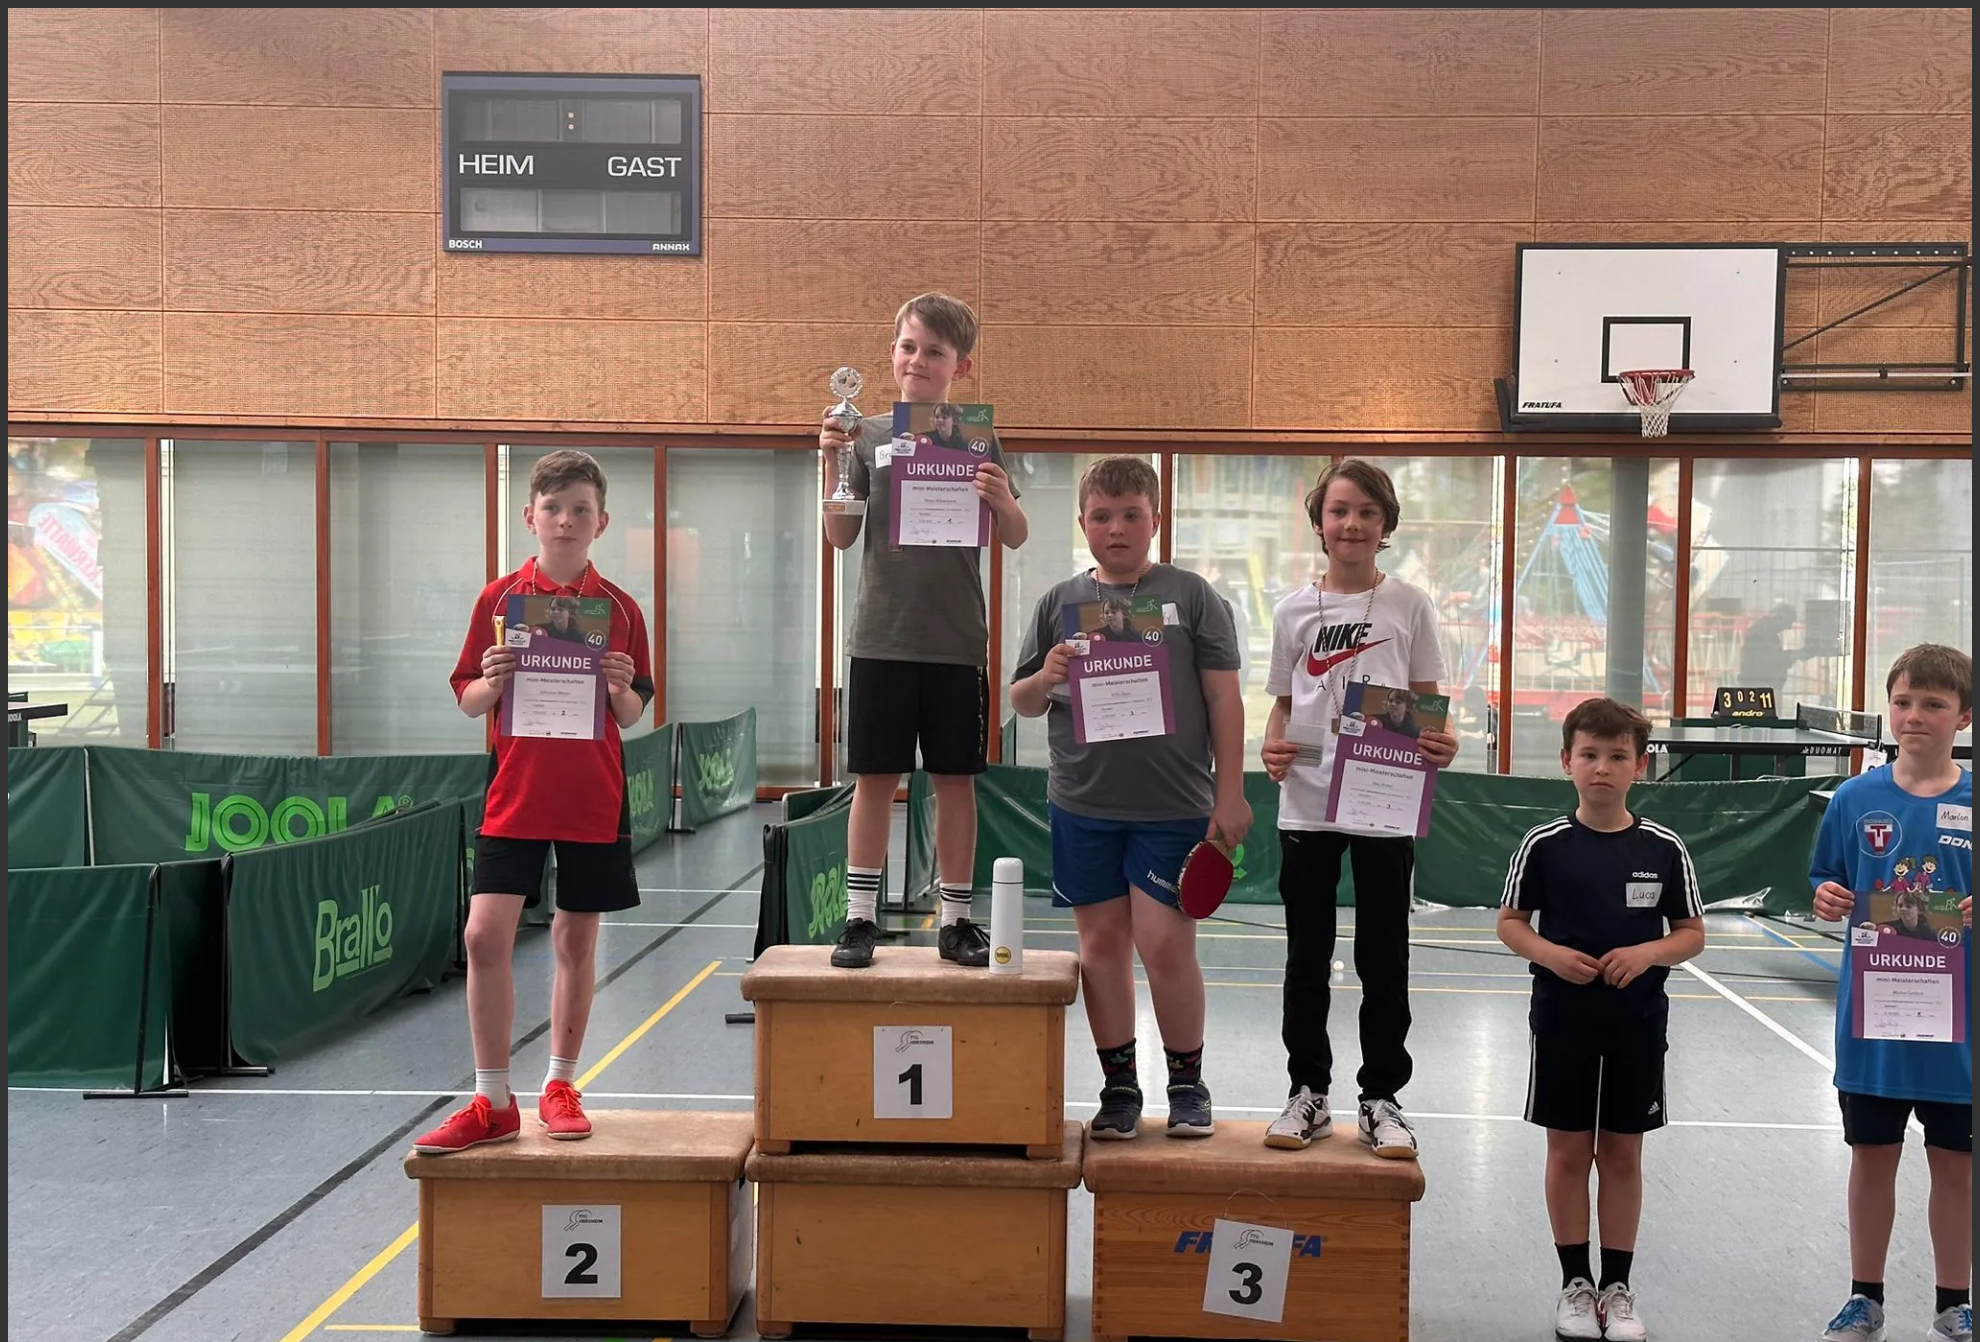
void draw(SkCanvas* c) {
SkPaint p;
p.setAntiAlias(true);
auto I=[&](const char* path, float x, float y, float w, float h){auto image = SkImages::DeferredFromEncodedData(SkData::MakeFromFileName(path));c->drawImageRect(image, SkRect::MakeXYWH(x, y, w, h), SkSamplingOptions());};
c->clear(0xff333333);
I("1.png",8,8,1964,1334);
}
